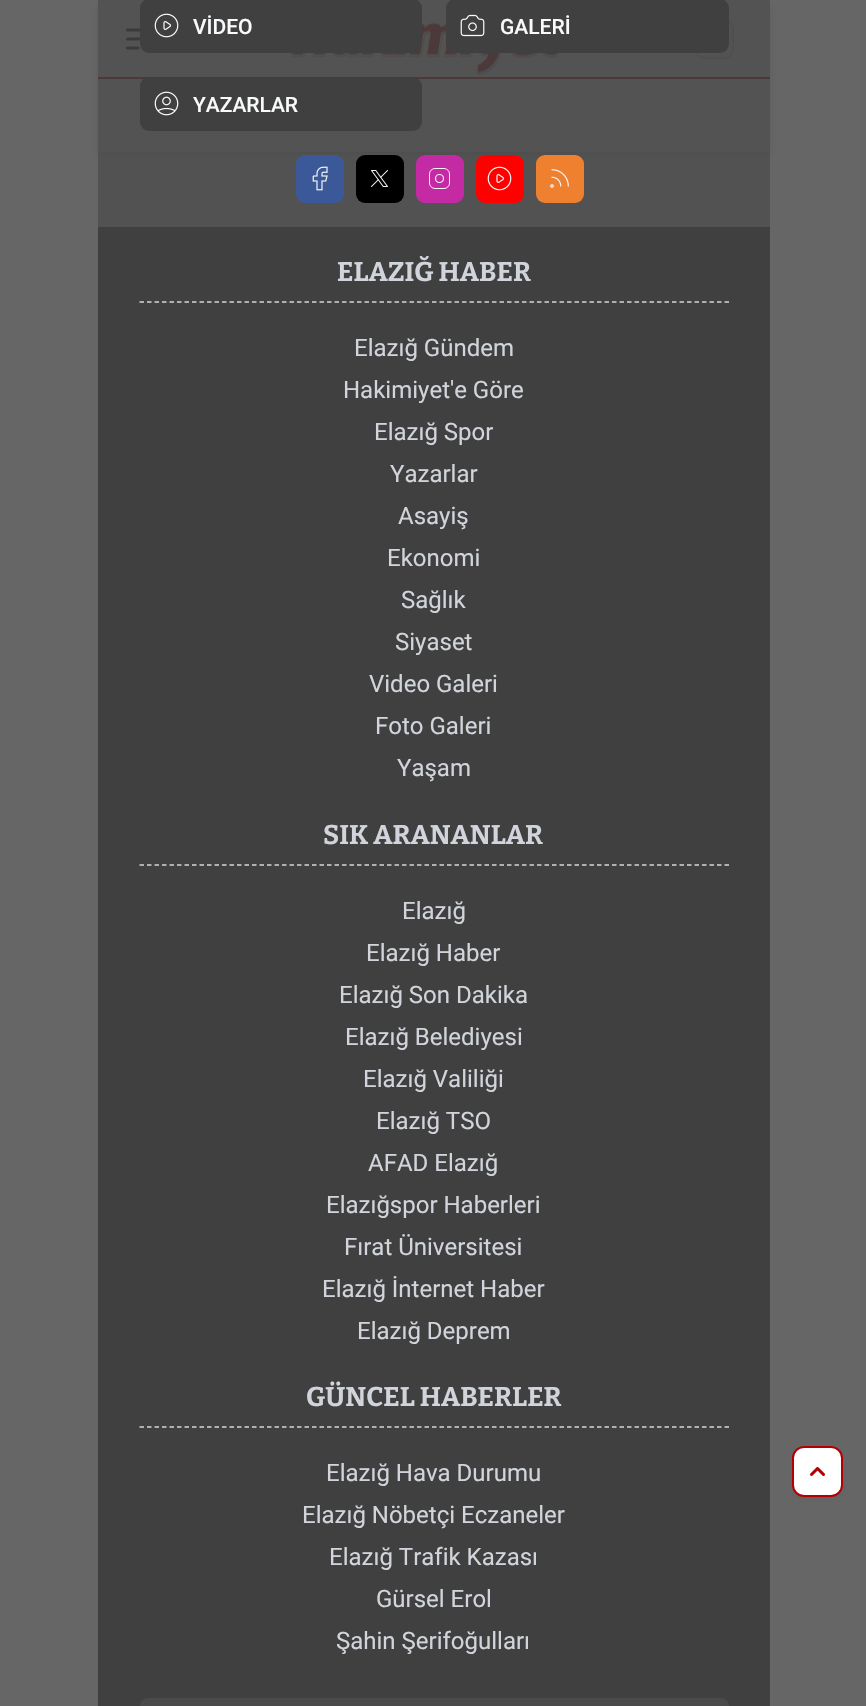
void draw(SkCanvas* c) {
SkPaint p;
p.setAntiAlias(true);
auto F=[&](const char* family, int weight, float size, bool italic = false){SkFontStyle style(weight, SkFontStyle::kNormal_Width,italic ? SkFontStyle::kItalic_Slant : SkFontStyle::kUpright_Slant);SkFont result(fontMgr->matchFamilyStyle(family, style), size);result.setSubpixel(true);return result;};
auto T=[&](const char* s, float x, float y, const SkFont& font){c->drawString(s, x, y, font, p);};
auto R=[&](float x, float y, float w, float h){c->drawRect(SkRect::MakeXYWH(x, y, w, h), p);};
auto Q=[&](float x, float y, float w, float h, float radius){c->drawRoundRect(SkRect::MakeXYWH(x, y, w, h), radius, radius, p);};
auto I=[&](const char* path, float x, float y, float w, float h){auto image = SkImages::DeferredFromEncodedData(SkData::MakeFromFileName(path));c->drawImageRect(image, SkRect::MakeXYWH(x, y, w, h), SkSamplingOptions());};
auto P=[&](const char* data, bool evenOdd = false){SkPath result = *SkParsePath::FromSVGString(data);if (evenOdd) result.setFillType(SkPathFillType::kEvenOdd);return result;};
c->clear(0xff666666);
p.setColor(0xfff1f5f9);
R(98,152,672,75);
p.setColor(0x1a000000);
p.setMaskFilter(SkMaskFilter::MakeBlur(kNormal_SkBlurStyle, 3));
c->drawRect(SkRect::MakeXYWH(101,6,666,146),p);
p.setMaskFilter(nullptr);
p.setMaskFilter(SkMaskFilter::MakeBlur(kNormal_SkBlurStyle, 4.5));
c->drawRect(SkRect::MakeXYWH(99,8,669,148),p);
p.setMaskFilter(nullptr);
p.setColor(0xffffffff);
R(98,0,672,152);
p.setStroke(true);
p.setStrokeWidth(3);
p.setStrokeCap(SkPaint::kRound_Cap);
p.setStrokeJoin(SkPaint::kRound_Join);
p.setColor(0xff000000);
c->drawPath(P("M127.5 30h24m-24 9h24m-24 9h10.5"),p);
I("1.png",290,22,269,54);
p.setStrokeWidth(2);
p.setStrokeCap(SkPaint::kButt_Cap);
p.setStrokeJoin(SkPaint::kMiter_Join);
p.setColor(0xffcbd5e1);
c->drawRoundRect(SkRect::MakeXYWH(696,21,37,37),8,8,p);
p.setStroke(false);
p.setColor(0xffb40000);
R(98,77,672,2);
p.setColor(0xe6404040);
R(98,0,672,227);
p.setColor(0xff404040);
Q(140,-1,282,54,9);
I("2.png",154,13,25,25);
auto f1 = F("Roboto",500,21);
p.setColor(0xfff9fafb);
T("VİDEO",193,34,f1);
p.setColor(0xff404040);
Q(446,-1,283,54,9);
I("3.png",460,14,25,23);
p.setColor(0xfff9fafb);
T("GALERİ",500,34,f1);
p.setColor(0xff404040);
Q(140,77,282,54,9);
I("4.png",154,91,25,25);
p.setColor(0xfff9fafb);
T("YAZARLAR",193,112,f1);
p.setColor(0xff3b5998);
Q(296,155,48,48,9);
I("5.png",312,166,16,25);
p.setColor(0xff000000);
Q(356,155,48,48,9);
I("6.png",371,170,17,17);
p.setColor(0xffc32aa3);
Q(416,155,48,48,9);
p.setStroke(true);
p.setStrokeWidth(1);
p.setColor(0xfff3f4f6);
c->drawRoundRect(SkRect::MakeXYWH(429.5,168.5,20,20),5.5,5.5,p);
p.setStrokeWidth(1.2);
c->drawCircle(439.5,178.5,4,p);
p.setStroke(false);
p.setColor(0xffff0000);
Q(476,155,48,48,9);
I("7.png",487,166,25,25);
p.setColor(0xffee802f);
Q(536,155,48,48,9);
I("8.png",550,169,19,19);
p.setColor(0xff404040);
R(98,227,672,1479);
p.setStroke(true);
p.setStrokeWidth(1.5);
p.setColor(0xffd1d5db);
p.setPathEffect(SkDashPathEffect::Make({{4.5f,3}}, 0));
c->drawPath(P("M139.5 302h589.5"),p);
p.setPathEffect(nullptr);
auto f2 = F("Bitter",100,27);
p.setStroke(false);
T("ELAZIĞ HABER",337,281,f2);
auto f3 = F("Roboto",400,24);
T("Elazığ Gündem",354,356,f3);
T("Hakimiyet'e Göre",343,398,f3);
T("Elazığ Spor",374,440,f3);
T("Yazarlar",390,482,f3);
T("Asayiş",398,524,f3);
T("Ekonomi",387,566,f3);
T("Sağlık",401,608,f3);
T("Siyaset",395,650,f3);
T("Video Galeri",369,692,f3);
T("Foto Galeri",375,734,f3);
T("Yaşam",397,776,f3);
p.setStroke(true);
p.setPathEffect(SkDashPathEffect::Make({{4.5f,3}}, 0));
c->drawPath(P("M139.5 865h589.5"),p);
p.setPathEffect(nullptr);
p.setStroke(false);
T("SIK ARANANLAR",323,844,f2);
T("Elazığ",402,919,f3);
T("Elazığ Haber",366,961,f3);
T("Elazığ Son Dakika",339,1003,f3);
T("Elazığ Belediyesi",345,1045,f3);
T("Elazığ Valiliği",363,1087,f3);
T("Elazığ TSO",376,1129,f3);
T("AFAD Elazığ",368,1171,f3);
T("Elazığspor Haberleri",326,1213,f3);
T("Fırat Üniversitesi",344,1255,f3);
T("Elazığ İnternet Haber",322,1297,f3);
T("Elazığ Deprem",357,1339,f3);
p.setStroke(true);
p.setPathEffect(SkDashPathEffect::Make({{4.5f,3}}, 0));
c->drawPath(P("M139.5 1427h589.5"),p);
p.setPathEffect(nullptr);
p.setStroke(false);
T("GÜNCEL HABERLER",306,1406,f2);
T("Elazığ Hava Durumu",326,1481,f3);
T("Elazığ Nöbetçi Eczaneler",302,1523,f3);
T("Elazığ Trafik Kazası",329,1565,f3);
T("Gürsel Erol",376,1607,f3);
T("Şahin Şerifoğulları",336,1649,f3);
p.setColor(0xff4a4a4a);
Q(140,1698,589,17,9);
p.setColor(0x1a000000);
p.setMaskFilter(SkMaskFilter::MakeBlur(kNormal_SkBlurStyle, 3));
c->drawRoundRect(SkRect::MakeXYWH(795,1452,45,45),9,9,p);
p.setMaskFilter(nullptr);
p.setColor(0xffffffff);
c->drawRoundRect(SkRect::MakeXYWH(793,1447,49,49),11,11,p);
p.setStroke(true);
p.setStrokeWidth(2);
p.setColor(0xffb40000);
c->drawRoundRect(SkRect::MakeXYWH(793,1447,49,49),11,11,p);
I("9.png",810,1467,15,9);
}
